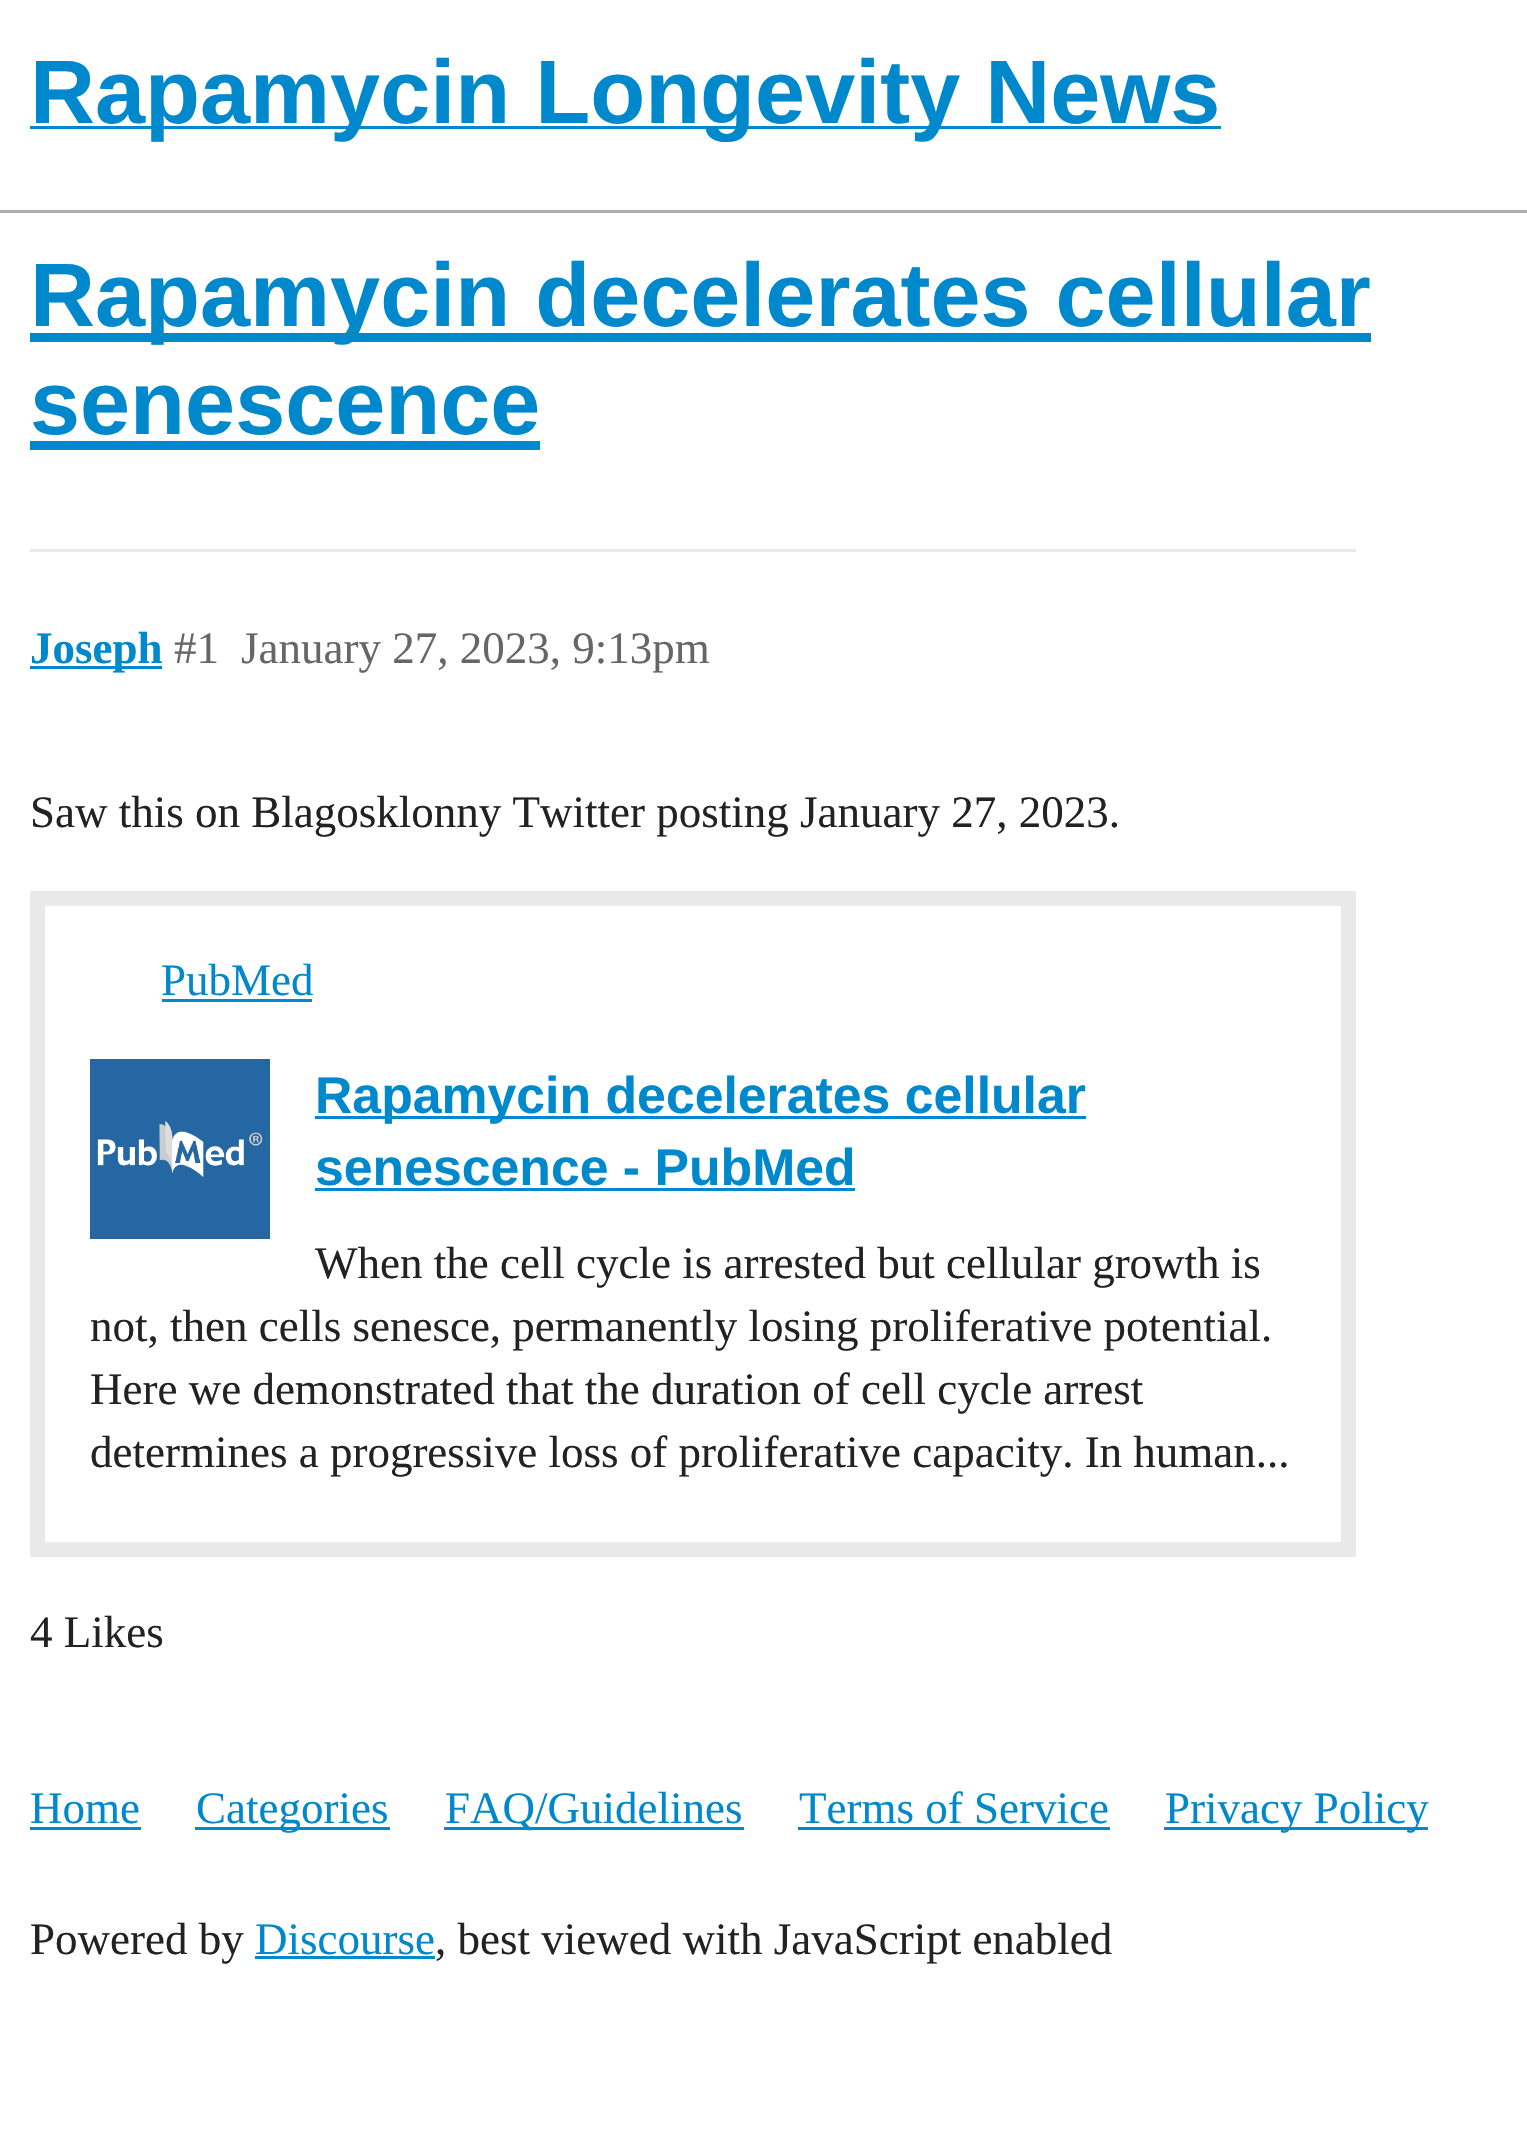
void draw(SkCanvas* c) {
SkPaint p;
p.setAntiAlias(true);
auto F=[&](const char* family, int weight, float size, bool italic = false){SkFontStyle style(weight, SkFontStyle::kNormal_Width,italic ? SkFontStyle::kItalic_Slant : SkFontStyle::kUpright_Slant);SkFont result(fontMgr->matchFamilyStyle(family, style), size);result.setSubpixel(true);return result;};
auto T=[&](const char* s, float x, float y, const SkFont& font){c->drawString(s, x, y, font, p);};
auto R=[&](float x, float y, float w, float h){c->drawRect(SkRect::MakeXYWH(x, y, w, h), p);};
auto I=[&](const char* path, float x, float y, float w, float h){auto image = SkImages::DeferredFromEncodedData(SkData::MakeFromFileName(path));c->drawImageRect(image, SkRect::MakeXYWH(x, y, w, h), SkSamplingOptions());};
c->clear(0xffffffff);
p.setColor(0xffafafaf);
R(0,210,1527,3);
p.setColor(0xff0088cc);
R(30,126,1191,3);
auto f1 = F("Liberation Sans",700,90);
T("Rapamycin Longevity News",30,123,f1);
R(30,333,1341,9);
T("Rapamycin decelerates cellular",30,326,f1);
T("senescence",30,434,f1);
R(30,441,510,9);
p.setColor(0xffe9e9e9);
R(30,549,1326,3);
p.setColor(0xff0088cc);
R(30,666,132,3);
auto f2 = F("Liberation Serif",700,45);
T("Joseph",30,663,f2);
auto f3 = F("Liberation Serif",400,45);
p.setColor(0xff666666);
T("#1",174,663,f3);
T("January 27, 2023, 9:13pm",241,663,f3);
p.setColor(0xff222222);
T("Saw this on Blagosklonny Twitter posting January 27, 2023.",30,827,f3);
p.setStroke(true);
p.setStrokeWidth(15);
p.setColor(0xffe9e9e9);
c->drawRect(SkRect::MakeXYWH(37.5,898.5,1311,651),p);
p.setStroke(false);
p.setColor(0xff0088cc);
T("PubMed",161,995,f3);
R(162,999,150,3);
I("1.png",90,1059,180,180);
R(315,1116,771,3);
auto f4 = F("Liberation Sans",700,51.75);
T("Rapamycin decelerates cellular",315,1113,f4);
T("senescence - PubMed",315,1185,f4);
R(315,1188,540,3);
p.setColor(0xff222222);
T("When the cell cycle is arrested but cellular growth is",315,1278,f3);
T("not, then cells senesce, permanently losing proliferative potential.",90,1341,f3);
T("Here we demonstrated that the duration of cell cycle arrest",90,1404,f3);
T("determines a progressive loss of proliferative capacity. In human...",90,1467,f3);
T("4 Likes",30,1647,f3);
p.setColor(0xff0088cc);
T("Home",30,1823,f3);
R(30,1827,111,3);
R(195,1827,195,3);
T("Categories",196,1823,f3);
R(444,1827,300,3);
T("FAQ/Guidelines",445,1823,f3);
T("Terms of Service",799,1823,f3);
R(798,1827,312,3);
R(1164,1827,264,3);
T("Privacy Policy",1165,1823,f3);
p.setColor(0xff222222);
T("Powered by",30,1954,f3);
p.setColor(0xff0088cc);
T("Discourse",255,1954,f3);
R(255,1956,180,3);
p.setColor(0xff222222);
T(", best viewed with JavaScript enabled",435,1954,f3);
}
